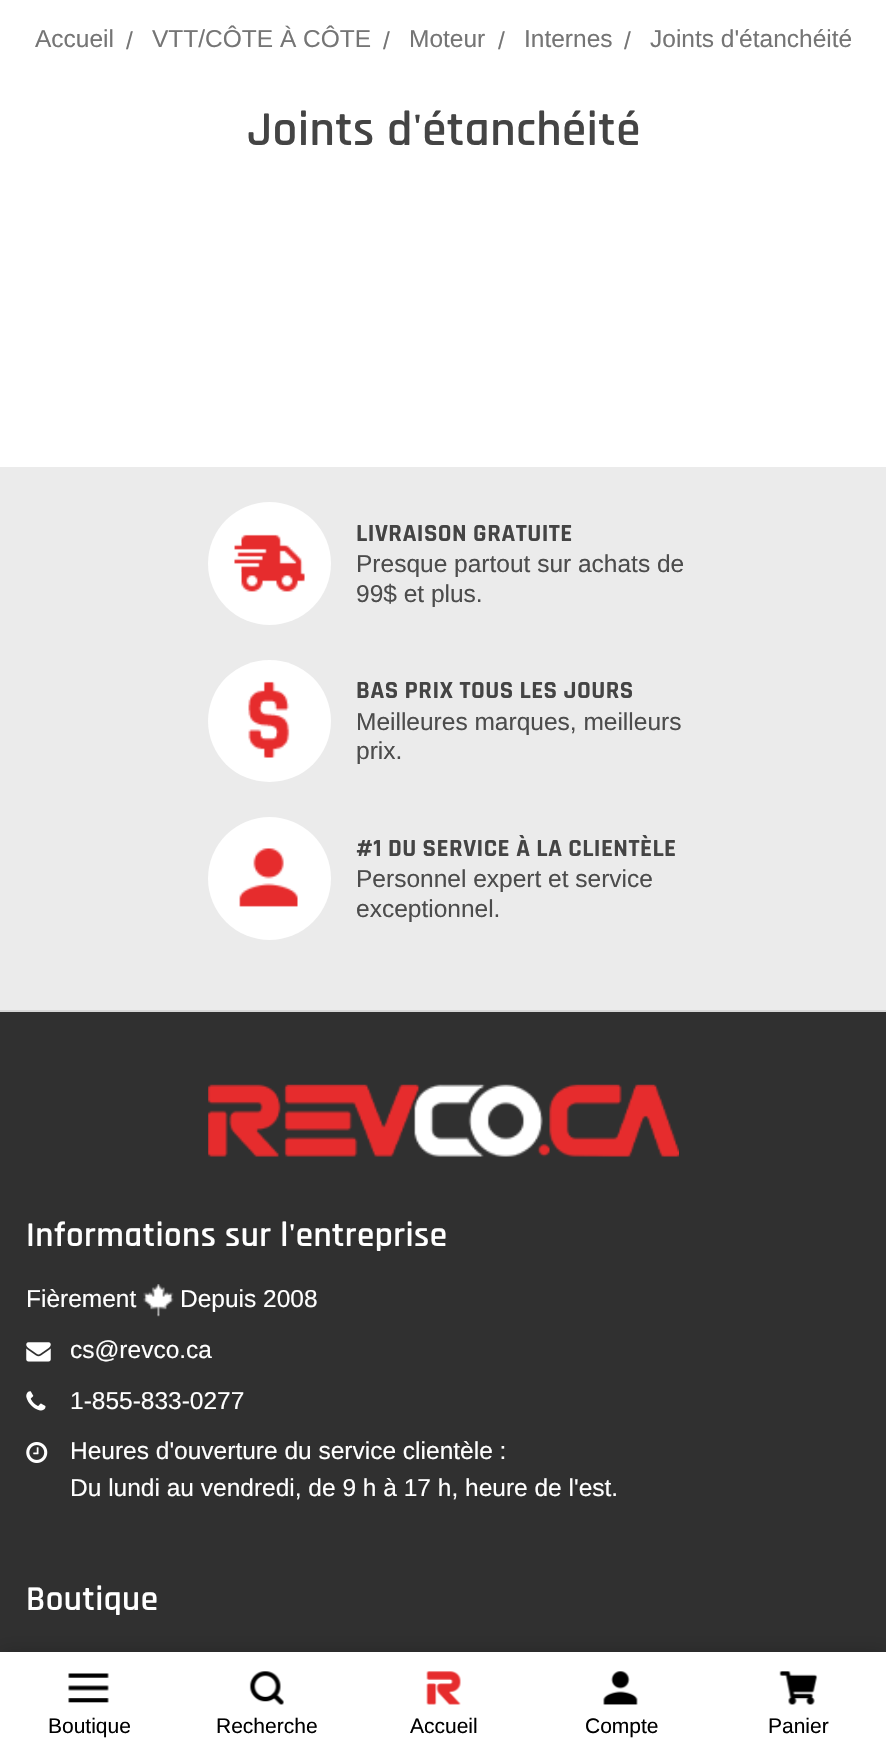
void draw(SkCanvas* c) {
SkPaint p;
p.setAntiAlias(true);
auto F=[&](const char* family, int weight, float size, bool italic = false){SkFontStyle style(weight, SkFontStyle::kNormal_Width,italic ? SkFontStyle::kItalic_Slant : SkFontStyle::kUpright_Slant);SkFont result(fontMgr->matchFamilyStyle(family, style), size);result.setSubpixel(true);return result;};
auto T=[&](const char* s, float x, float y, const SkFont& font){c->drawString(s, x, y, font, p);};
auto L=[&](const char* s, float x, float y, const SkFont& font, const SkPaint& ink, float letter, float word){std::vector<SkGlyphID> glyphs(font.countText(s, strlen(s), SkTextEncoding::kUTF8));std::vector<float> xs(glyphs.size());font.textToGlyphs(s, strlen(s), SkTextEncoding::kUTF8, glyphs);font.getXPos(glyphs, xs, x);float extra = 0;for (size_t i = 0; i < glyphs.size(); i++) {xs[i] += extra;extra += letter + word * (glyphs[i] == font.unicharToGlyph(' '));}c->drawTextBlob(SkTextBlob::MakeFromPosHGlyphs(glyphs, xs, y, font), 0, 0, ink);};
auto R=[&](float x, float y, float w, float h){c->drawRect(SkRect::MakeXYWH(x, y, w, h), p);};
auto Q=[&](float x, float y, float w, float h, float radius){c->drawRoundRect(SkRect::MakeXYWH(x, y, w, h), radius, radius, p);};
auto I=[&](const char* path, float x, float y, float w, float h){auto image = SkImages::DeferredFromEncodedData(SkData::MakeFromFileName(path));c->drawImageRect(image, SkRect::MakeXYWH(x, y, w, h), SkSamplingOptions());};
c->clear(0xffffffff);
auto f1 = F("Arimo",400,24.5);
p.setColor(0xff757575);
T("Accueil",35,47,f1);
T("/",126,49,f1);
T("VTT/CÔTE À CÔTE",152,47,f1);
T("/",383,49,f1);
T("Moteur",409,47,f1);
T("/",498,49,f1);
T("Internes",524,47,f1);
T("/",624,49,f1);
T("Joints d'étanchéité",650,47,f1);
auto f2 = F("Rajdhani",600,49);
p.setColor(0xff444444);
L("Joints d'étanchéité",247,145,f2,p,.45,0);
p.setColor(0xffebebeb);
R(0,467,886,543);
p.setColor(0xffffffff);
c->drawCircle(269.5,563.5,61.5,p);
I("1.png",234,534,71,58);
auto f3 = F("Rajdhani",700,25);
p.setColor(0xff444444);
L("LIVRAISON GRATUITE",356,541,f3,p,.45,0);
p.setColor(0xff4c4c4c);
T("Presque partout sur achats de",356,572,f1);
T("99$ et plus.",356,602,f1);
p.setColor(0xffffffff);
Q(208,660,123,122,61);
I("2.png",248,681,42,77);
p.setColor(0xff444444);
L("BAS PRIX TOUS LES JOURS",356,698,f3,p,.45,0);
p.setColor(0xff4c4c4c);
T("Meilleures marques, meilleurs",356,730,f1);
T("prix.",356,759,f1);
p.setColor(0xffffffff);
c->drawCircle(269.5,878.5,61.5,p);
I("3.png",239,848,59,59);
p.setColor(0xff444444);
L("#1 DU SERVICE À LA CLIENTÈLE",356,856,f3,p,.45,0);
p.setColor(0xff4c4c4c);
T("Personnel expert et service",356,887,f1);
T("exceptionnel.",356,917,f1);
p.setColor(0xff303030);
R(0,1012,886,640);
p.setColor(0xffd6d6d6);
R(0,1010,886,2);
I("4.png",208,1084,471,73);
auto f4 = F("Rajdhani",600,35);
p.setColor(0xffffffff);
L("Informations sur l'entreprise",26,1246,f4,p,.45,0);
T("Fièrement",26,1307,f1);
I("5.png",143,1284,31,33);
T("Depuis 2008",180,1307,f1);
I("6.png",26,1342,25,20);
T("cs@revco.ca",70,1358,f1);
I("7.png",26,1391,20,20);
T("1-855-833-0277",70,1409,f1);
I("8.png",26,1442,22,21);
T("Heures d'ouverture du service clientèle :",70,1459,f1);
T("Du lundi au vendredi, de 9 h à 17 h, heure de l'est.",70,1496,f1);
L("Boutique",26,1610,f4,p,.45,0);
p.setColor(0x33000000);
p.setMaskFilter(SkMaskFilter::MakeBlur(kNormal_SkBlurStyle, 9));
c->drawRect(SkRect::MakeXYWH(0,1652,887,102),p);
p.setMaskFilter(nullptr);
p.setColor(0xffffffff);
R(0,1652,886,100);
I("9.png",68,1673,41,30);
auto f5 = F("Arimo",400,21);
p.setColor(0xff000000);
T("Boutique",48,1733,f5);
I("10.png",249,1671,35,34);
T("Recherche",216,1733,f5);
I("11.png",426,1671,35,34);
T("Accueil",410,1733,f5);
I("12.png",603,1671,35,34);
T("Compte",585,1733,f5);
I("13.png",779,1671,39,34);
T("Panier",768,1733,f5);
}
